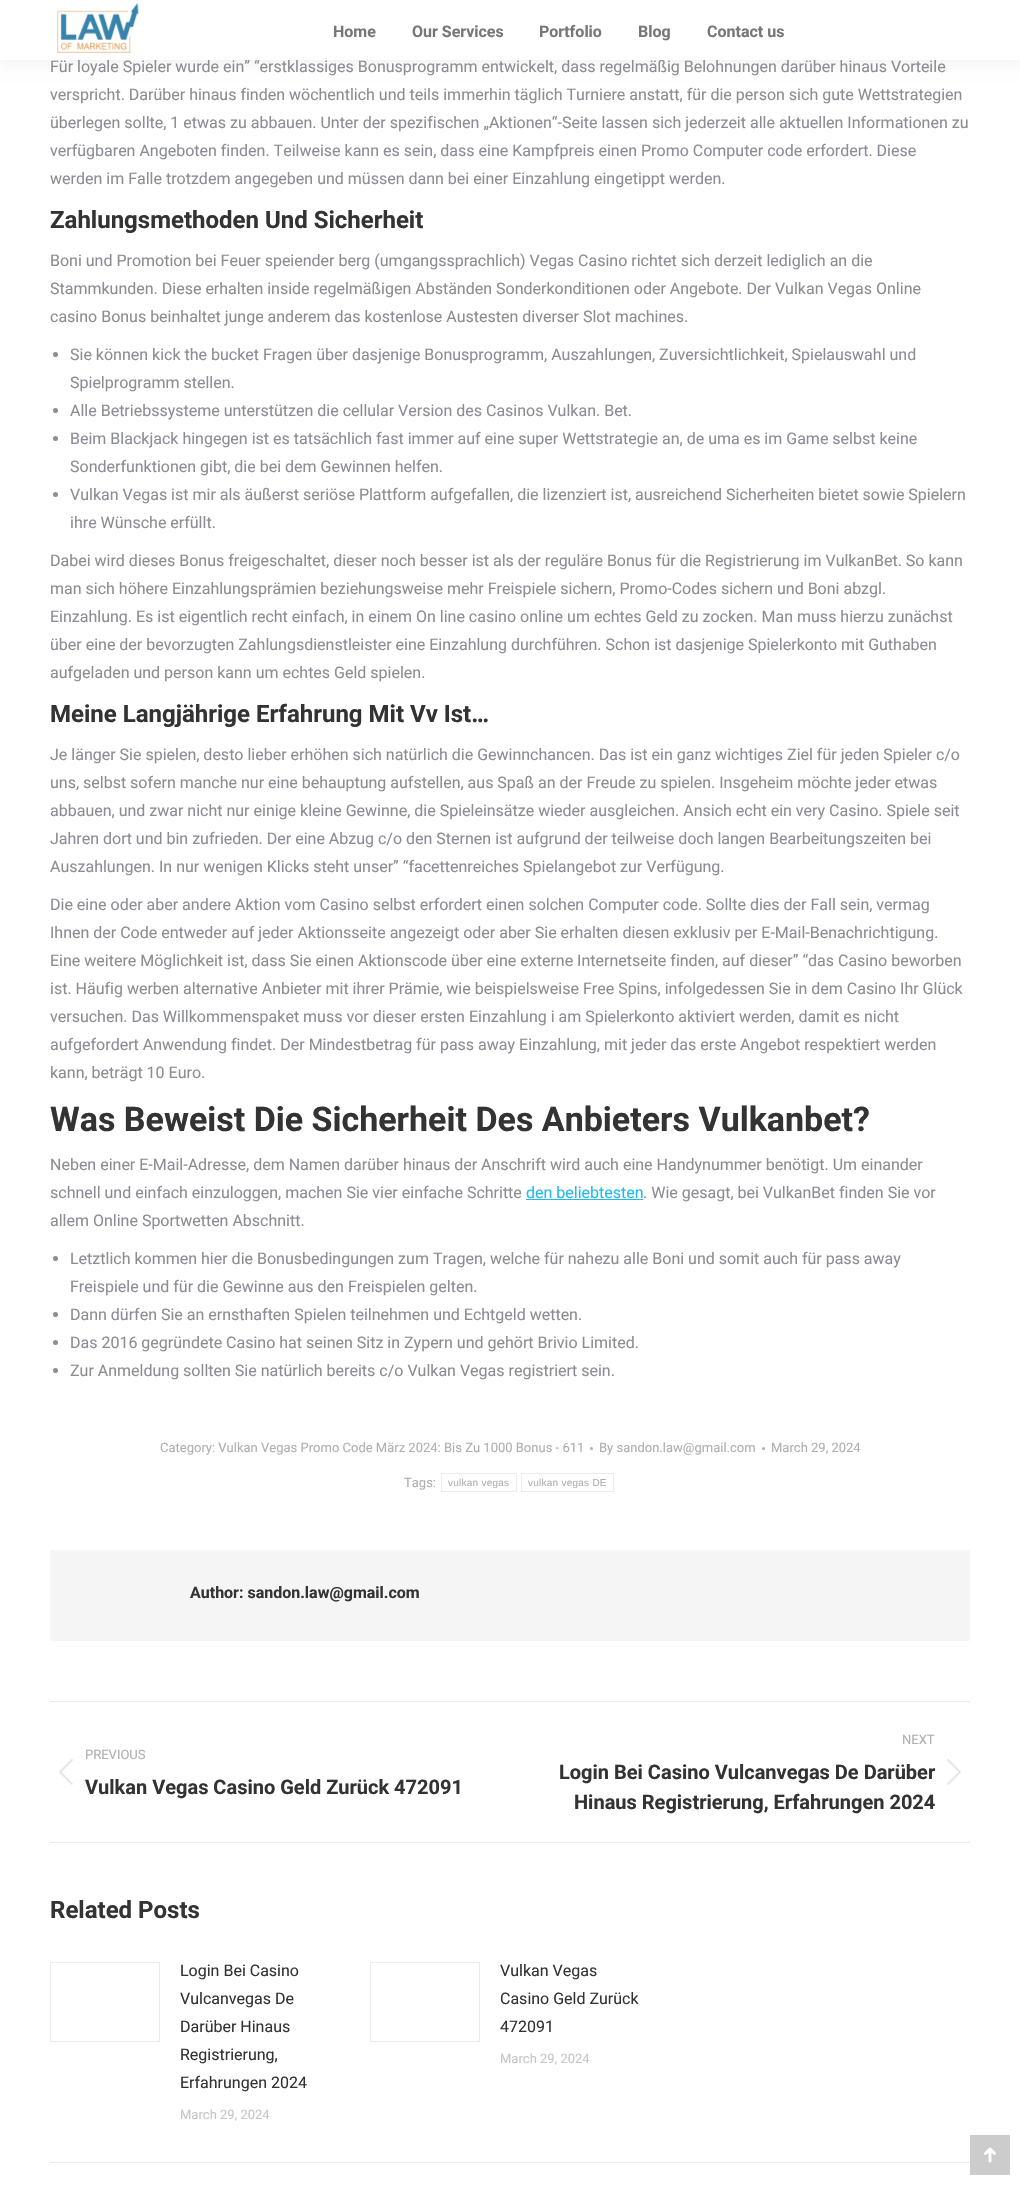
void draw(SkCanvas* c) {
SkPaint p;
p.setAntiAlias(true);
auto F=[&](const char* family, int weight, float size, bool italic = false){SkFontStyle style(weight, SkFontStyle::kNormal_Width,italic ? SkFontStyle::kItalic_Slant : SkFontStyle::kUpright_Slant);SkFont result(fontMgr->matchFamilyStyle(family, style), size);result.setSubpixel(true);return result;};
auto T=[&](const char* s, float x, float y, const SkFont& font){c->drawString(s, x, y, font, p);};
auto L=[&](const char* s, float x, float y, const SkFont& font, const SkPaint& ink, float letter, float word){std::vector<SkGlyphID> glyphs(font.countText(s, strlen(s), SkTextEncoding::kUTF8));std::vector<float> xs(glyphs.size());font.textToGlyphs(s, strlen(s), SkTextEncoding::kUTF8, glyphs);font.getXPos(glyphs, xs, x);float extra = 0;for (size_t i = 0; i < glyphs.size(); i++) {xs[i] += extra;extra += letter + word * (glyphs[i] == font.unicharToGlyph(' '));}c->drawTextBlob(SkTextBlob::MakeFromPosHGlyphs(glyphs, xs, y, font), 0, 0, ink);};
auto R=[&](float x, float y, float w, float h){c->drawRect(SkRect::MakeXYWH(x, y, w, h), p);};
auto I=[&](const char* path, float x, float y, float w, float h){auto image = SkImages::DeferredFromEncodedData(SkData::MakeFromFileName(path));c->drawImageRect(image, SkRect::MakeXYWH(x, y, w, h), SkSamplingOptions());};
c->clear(0xffffffff);
p.setColor(0x12000000);
p.setMaskFilter(SkMaskFilter::MakeBlur(kNormal_SkBlurStyle, 7.5));
c->drawRect(SkRect::MakeXYWH(-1,-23,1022,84),p);
p.setMaskFilter(nullptr);
auto f1 = F("Roboto",400,16);
p.setColor(0xff8b8d94);
T("Für loyale Spieler wurde ein” “erstklassiges Bonusprogramm entwickelt, dass regelmäßig Belohnungen darüber hinaus Vorteile",50,72,f1);
p.setColor(0xffffffff);
R(0,0,1020,60);
I("1.png",57,3,82,51);
auto f2 = F("Roboto",700,16);
p.setColor(0xff777777);
T("Home",333,37,f2);
T("Our Services",412,37,f2);
T("Portfolio",539,37,f2);
T("Blog",638,37,f2);
T("Contact us",707,37,f2);
p.setColor(0xff8b8d94);
T("verspricht. Darüber hinaus finden wöchentlich und teils immerhin täglich Turniere anstatt, für die person sich gute Wettstrategien",50,100,f1);
T("überlegen sollte, 1 etwas zu abbauen. Unter der spezifischen „Aktionen“-Seite lassen sich jederzeit alle aktuellen Informationen zu",50,128,f1);
T("verfügbaren Angeboten finden. Teilweise kann es sein, dass eine Kampfpreis einen Promo Computer code erfordert. Diese",50,156,f1);
T("werden im Falle trotzdem angegeben und müssen dann bei einer Einzahlung eingetippt werden.",50,184,f1);
auto f3 = F("Roboto",700,24);
p.setColor(0xff333333);
T("Zahlungsmethoden Und Sicherheit",50,228,f3);
p.setColor(0xff8b8d94);
T("Boni und Promotion bei Feuer speiender berg (umgangssprachlich) Vegas Casino richtet sich derzeit lediglich an die",50,266,f1);
T("Stammkunden. Diese erhalten inside regelmäßigen Abständen Sonderkonditionen oder Angebote. Der Vulkan Vegas Online",50,294,f1);
T("casino Bonus beinhaltet junge anderem das kostenlose Austesten diverser Slot machines.",50,322,f1);
c->drawCircle(55.5,354.5,2.5,p);
T("Sie können kick the bucket Fragen über dasjenige Bonusprogramm, Auszahlungen, Zuversichtlichkeit, Spielauswahl und",70,360,f1);
T("Spielprogramm stellen.",70,388,f1);
c->drawCircle(55.5,410.5,2.5,p);
T("Alle Betriebssysteme unterstützen die cellular Version des Casinos Vulkan. Bet.",70,416,f1);
c->drawCircle(55.5,438.5,2.5,p);
T("Beim Blackjack hingegen ist es tatsächlich fast immer auf eine super Wettstrategie an, de uma es im Game selbst keine",70,444,f1);
T("Sonderfunktionen gibt, die bei dem Gewinnen helfen.",70,472,f1);
c->drawCircle(55.5,494.5,2.5,p);
T("Vulkan Vegas ist mir als äußerst seriöse Plattform aufgefallen, die lizenziert ist, ausreichend Sicherheiten bietet sowie Spielern",70,500,f1);
T("ihre Wünsche erfüllt.",70,528,f1);
T("Dabei wird dieses Bonus freigeschaltet, dieser noch besser ist als der reguläre Bonus für die Registrierung im VulkanBet. So kann",50,566,f1);
T("man sich höhere Einzahlungsprämien beziehungsweise mehr Freispiele sichern, Promo-Codes sichern und Boni abzgl.",50,594,f1);
T("Einzahlung. Es ist eigentlich recht einfach, in einem On line casino online um echtes Geld zu zocken. Man muss hierzu zunächst",50,622,f1);
T("über eine der bevorzugten Zahlungsdienstleister eine Einzahlung durchführen. Schon ist dasjenige Spielerkonto mit Guthaben",50,650,f1);
T("aufgeladen und person kann um echtes Geld spielen.",50,678,f1);
p.setColor(0xff333333);
T("Meine Langjährige Erfahrung Mit Vv Ist…",50,722,f3);
p.setColor(0xff8b8d94);
T("Je länger Sie spielen, desto lieber erhöhen sich natürlich die Gewinnchancen. Das ist ein ganz wichtiges Ziel für jeden Spieler c/o",50,760,f1);
T("uns, selbst sofern manche nur eine behauptung aufstellen, aus Spaß an der Freude zu spielen. Insgeheim möchte jeder etwas",50,788,f1);
T("abbauen, und zwar nicht nur einige kleine Gewinne, die Spieleinsätze wieder ausgleichen. Ansich echt ein very Casino. Spiele seit",50,816,f1);
T("Jahren dort und bin zufrieden. Der eine Abzug c/o den Sternen ist aufgrund der teilweise doch langen Bearbeitungszeiten bei",50,844,f1);
T("Auszahlungen. In nur wenigen Klicks steht unser” “facettenreiches Spielangebot zur Verfügung.",50,872,f1);
T("Die eine oder aber andere Aktion vom Casino selbst erfordert einen solchen Computer code. Sollte dies der Fall sein, vermag",50,910,f1);
T("Ihnen der Code entweder auf jeder Aktionsseite angezeigt oder aber Sie erhalten diesen exklusiv per E-Mail-Benachrichtigung.",50,938,f1);
T("Eine weitere Möglichkeit ist, dass Sie einen Aktionscode über eine externe Internetseite finden, auf dieser” “das Casino beworben",50,966,f1);
T("ist. Häufig werben alternative Anbieter mit ihrer Prämie, wie beispielsweise Free Spins, infolgedessen Sie in dem Casino Ihr Glück",50,994,f1);
T("versuchen. Das Willkommenspaket muss vor dieser ersten Einzahlung i am Spielerkonto aktiviert werden, damit es nicht",50,1022,f1);
T("aufgefordert Anwendung findet. Der Mindestbetrag für pass away Einzahlung, mit jeder das erste Angebot respektiert werden",50,1050,f1);
T("kann, beträgt 10 Euro.",50,1078,f1);
auto f4 = F("Roboto",700,34);
p.setColor(0xff333333);
T("Was Beweist Die Sicherheit Des Anbieters Vulkanbet?",50,1131,f4);
p.setColor(0xff8b8d94);
T("Neben einer E-Mail-Adresse, dem Namen darüber hinaus der Anschrift wird auch eine Handynummer benötigt. Um einander",50,1170,f1);
T("schnell und einfach einzuloggen, machen Sie vier einfache Schritte",50,1198,f1);
p.setColor(0xff1ebbf0);
T("den beliebtesten",526,1198,f1);
R(526,1199,117,1);
p.setColor(0xff8b8d94);
T(". Wie gesagt, bei VulkanBet finden Sie vor",643,1198,f1);
T("allem Online Sportwetten Abschnitt.",50,1226,f1);
c->drawCircle(55.5,1258.5,2.5,p);
T("Letztlich kommen hier die Bonusbedingungen zum Tragen, welche für nahezu alle Boni und somit auch für pass away",70,1264,f1);
T("Freispiele und für die Gewinne aus den Freispielen gelten.",70,1292,f1);
c->drawCircle(55.5,1314.5,2.5,p);
T("Dann dürfen Sie an ernsthaften Spielen teilnehmen und Echtgeld wetten.",70,1320,f1);
c->drawCircle(55.5,1342.5,2.5,p);
T("Das 2016 gegründete Casino hat seinen Sitz in Zypern und gehört Brivio Limited.",70,1348,f1);
c->drawCircle(55.5,1370.5,2.5,p);
T("Zur Anmeldung sollten Sie natürlich bereits c/o Vulkan Vegas registriert sein.",70,1376,f1);
auto f5 = F("Roboto",400,13);
p.setColor(0xffadafb3);
T("Category: Vulkan Vegas Promo Code März 2024: Bis Zu 1000 Bonus - 611",160,1452,f5);
c->drawCircle(591.5,1448.5,1.5,p);
T("By sandon.law@gmail.com",599,1452,f5);
c->drawCircle(763.5,1448.5,1.5,p);
T("March 29, 2024",771,1452,f5);
T("Tags:",404,1487,f5);
p.setStroke(true);
p.setStrokeWidth(1);
p.setColor(0xffebebeb);
c->drawRect(SkRect::MakeXYWH(441.5,1473.5,75,18),p);
auto f6 = F("Liberation Sans",400,10);
p.setStroke(false);
p.setColor(0xffadafb3);
L("vulkan vegas",448,1486,f6,p,.25,0);
p.setStroke(true);
p.setColor(0xffebebeb);
c->drawRect(SkRect::MakeXYWH(521.5,1473.5,92,18),p);
p.setStroke(false);
p.setColor(0xffadafb3);
L("vulkan vegas DE",528,1486,f6,p,.25,0);
p.setColor(0xfff5f5f5);
R(50,1550,920,91);
p.setColor(0xff333333);
T("Author: sandon.law@gmail.com",190,1598,f2);
p.setColor(0xffebebeb);
R(50,1701,920,1);
R(50,1842,920,1);
p.setColor(0xffadafb3);
T("PREVIOUS",85,1759,f5);
I("2.png",59,1759,14,26);
auto f7 = F("Roboto",700,20);
p.setColor(0xff333333);
T("Vulkan Vegas Casino Geld Zurück 472091",85,1794,f7);
p.setColor(0xffadafb3);
T("NEXT",902,1744,f5);
p.setColor(0xff333333);
T("Login Bei Casino Vulcanvegas De Darüber",559,1779,f7);
T("Hinaus Registrierung, Erfahrungen 2024",574,1809,f7);
I("3.png",947,1759,14,26);
p.setColor(0xffebebeb);
R(50,2162,920,1);
p.setColor(0xff333333);
T("Related Posts",50,1918,f3);
p.setStroke(true);
p.setColor(0xffebebeb);
c->drawRect(SkRect::MakeXYWH(50.5,1962.5,109,79),p);
p.setStroke(false);
p.setColor(0xff333333);
T("Login Bei Casino",180,1976,f1);
T("Vulcanvegas De",180,2004,f1);
T("Darüber Hinaus",180,2032,f1);
T("Registrierung,",180,2060,f1);
T("Erfahrungen 2024",180,2088,f1);
p.setColor(0xffc5c6ca);
T("March 29, 2024",180,2119,f5);
p.setStroke(true);
p.setColor(0xffebebeb);
c->drawRect(SkRect::MakeXYWH(370.5,1962.5,109,79),p);
p.setStroke(false);
p.setColor(0xff333333);
T("Vulkan Vegas",500,1976,f1);
T("Casino Geld Zurück",500,2004,f1);
T("472091",500,2032,f1);
p.setColor(0xffc5c6ca);
T("March 29, 2024",500,2063,f5);
p.setColor(0xffcccccc);
R(970,2135,40,40);
I("4.png",984,2147,12,16);
}
